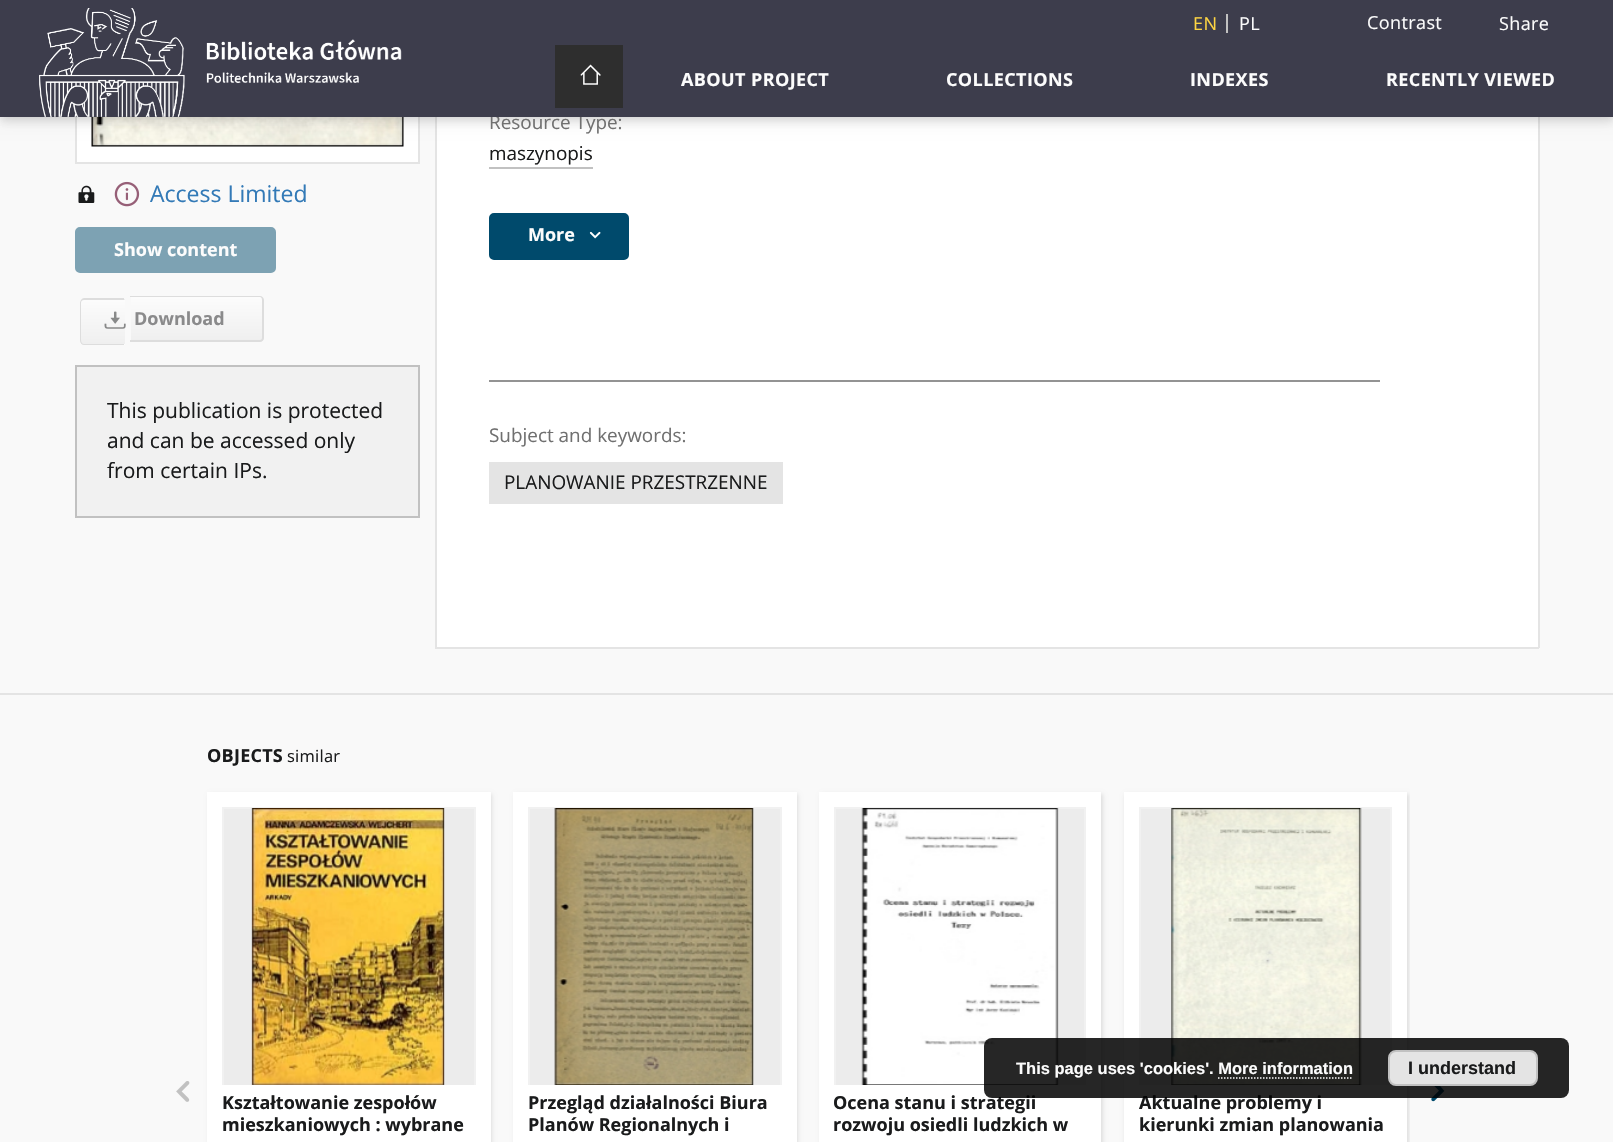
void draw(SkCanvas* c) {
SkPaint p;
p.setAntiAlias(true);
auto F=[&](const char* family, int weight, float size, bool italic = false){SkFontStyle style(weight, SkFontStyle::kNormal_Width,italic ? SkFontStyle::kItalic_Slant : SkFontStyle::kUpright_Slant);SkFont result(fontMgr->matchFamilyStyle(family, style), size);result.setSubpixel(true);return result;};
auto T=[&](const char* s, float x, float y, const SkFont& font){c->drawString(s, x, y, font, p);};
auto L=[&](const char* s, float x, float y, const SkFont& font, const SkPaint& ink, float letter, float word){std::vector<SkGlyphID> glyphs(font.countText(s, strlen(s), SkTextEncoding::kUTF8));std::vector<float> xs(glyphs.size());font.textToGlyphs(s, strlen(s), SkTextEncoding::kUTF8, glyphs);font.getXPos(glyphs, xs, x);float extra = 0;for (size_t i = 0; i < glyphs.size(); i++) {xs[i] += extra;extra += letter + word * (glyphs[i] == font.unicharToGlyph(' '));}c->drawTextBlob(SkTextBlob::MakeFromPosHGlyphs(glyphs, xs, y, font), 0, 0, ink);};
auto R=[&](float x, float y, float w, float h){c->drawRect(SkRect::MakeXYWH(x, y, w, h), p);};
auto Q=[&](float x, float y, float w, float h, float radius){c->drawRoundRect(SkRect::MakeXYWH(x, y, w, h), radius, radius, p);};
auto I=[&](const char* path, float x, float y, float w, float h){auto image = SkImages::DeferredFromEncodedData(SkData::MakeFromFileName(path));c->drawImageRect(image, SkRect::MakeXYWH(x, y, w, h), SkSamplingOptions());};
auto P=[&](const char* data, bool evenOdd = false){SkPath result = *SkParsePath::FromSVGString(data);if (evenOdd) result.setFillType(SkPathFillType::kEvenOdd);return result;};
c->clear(0xfff9f9f9);
p.setColor(0xffffffff);
R(77,117,341,45);
p.setStroke(true);
p.setStrokeWidth(2);
p.setColor(0xffe4e4e4);
c->drawRect(SkRect::MakeXYWH(76,-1,343,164),p);
I("3.png",91,117,313,30);
p.setStroke(false);
p.setColor(0xffffffff);
R(437,117,1101,530);
p.setColor(0xffe4e4e4);
R(1538,117,2,531);
R(435,647,1104,2);
R(435,117,2,531);
p.setColor(0x14000000);
p.setMaskFilter(SkMaskFilter::MakeBlur(kNormal_SkBlurStyle, 7.5));
c->drawRect(SkRect::MakeXYWH(0,2,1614,117),p);
p.setMaskFilter(nullptr);
p.setColor(0x0f000000);
p.setMaskFilter(SkMaskFilter::MakeBlur(kNormal_SkBlurStyle, 4));
c->drawRect(SkRect::MakeXYWH(0,6,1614,117),p);
p.setMaskFilter(nullptr);
p.setMaskFilter(SkMaskFilter::MakeBlur(kNormal_SkBlurStyle, 3));
c->drawRect(SkRect::MakeXYWH(2,5,1611,114),p);
p.setMaskFilter(nullptr);
auto f1 = F("Open Sans",400,18.9);
p.setColor(0xff707070);
T("Resource Type:",489,129,f1);
p.setColor(0xff3d3d4c);
R(0,0,1613,117);
p.setColor(0xffc1c1c1);
R(1226,14,2,19);
auto f2 = F("Open Sans",400,18);
p.setColor(0xfffed542);
L("EN",1193,30,f2,p,.4,0);
p.setColor(0xfffcfcfc);
L("PL",1239,30,f2,p,.4,0);
L("Contrast",1367,29,f2,p,.4,0);
L("Share",1499,30,f2,p,.4,0);
I("1.png",39,8,363,109);
p.setColor(0xff2e2e2e);
R(555,45,68,63);
I("2.png",580,64,21,21);
auto f3 = F("Open Sans",700,18);
p.setColor(0xfffcfcfc);
L("ABOUT PROJECT",681,86,f3,p,.4,0);
L("COLLECTIONS",946,86,f3,p,.4,0);
L("INDEXES",1190,86,f3,p,.4,0);
L("RECENTLY VIEWED",1386,86,f3,p,.4,0);
I("4.png",78,185,17,18);
I("5.png",114,181,26,26);
auto f4 = F("Open Sans",400,23);
p.setColor(0xff337ab7);
T("Access Limited",150,202,f4);
p.setColor(0xff7da2b3);
c->drawRoundRect(SkRect::MakeXYWH(76,228,199,44),4,4,p);
p.setStroke(true);
c->drawRoundRect(SkRect::MakeXYWH(76,228,199,44),4,4,p);
p.setStroke(false);
p.setColor(0xfffcfcfc);
T("Show content",114,256,f3);
{
const SkColor colors[] = {0xfffcfcfc,0xffefefef};
const float stops[] = {0,1};
const SkPoint ends[] = {{103,257}, {103,300}};
p.setShader(SkGradientShader::MakeLinear(ends, colors, stops, 2, SkTileMode::kClamp));
p.setAlpha(255);
}
R(124,299,1,1);
c->save();
c->clipPath(P("M85 299h40v46h-40c-3 0-5-2-5-5v-36c0-3 2-5 5-5z"),true);
{
const SkColor colors[] = {0xfffcfcfc,0xffefefef};
const float stops[] = {0,1};
const SkPoint ends[] = {{103,300}, {103,344}};
p.setShader(SkGradientShader::MakeLinear(ends, colors, stops, 2, SkTileMode::kClamp));
p.setAlpha(255);
}
R(80,300,45,44);
{
const SkColor colors[] = {0xfffcfcfc,0xffefefef};
const float stops[] = {0,1};
const SkPoint ends[] = {{103,344}, {103,387}};
p.setShader(SkGradientShader::MakeLinear(ends, colors, stops, 2, SkTileMode::kClamp));
p.setAlpha(255);
}
R(80,344,45,1);
c->restore();
p.setShader(nullptr);
p.setColor(0xffdddddd);
c->drawPath(P("M84 298h40v47h-40c-2 0-4-2-4-5v-37c0-2 2-5 4-5zm0 2h40v44h-40c-2 0-3-2-3-4v-37c0-2 1-3 3-3z",true),p);
c->save();
c->clipPath(P("M131 296h128c3 0 5 2 5 5v36c0 3-2 5-5 5h-128z"),true);
{
const SkColor colors[] = {0xfffcfcfc,0xffefefef};
const float stops[] = {0,1};
const SkPoint ends[] = {{197,297}, {197,341}};
p.setShader(SkGradientShader::MakeLinear(ends, colors, stops, 2, SkTileMode::kClamp));
p.setAlpha(255);
}
R(131,297,133,44);
c->restore();
p.setShader(nullptr);
p.setColor(0xffdddddd);
c->drawPath(P("M130 296h130c2 0 4 2 4 4v38c0 2-2 4-4 4h-130zm0 1h130c1 0 2 1 2 3v38c0 1-1 2-2 2h-130z",true),p);
I("6.png",104,311,22,18);
p.setColor(0xff8a8a8b);
T("Download",134,325,f3);
p.setColor(0xfff1f1f1);
c->drawRect(SkRect::MakeXYWH(76,366,343,151),p);
p.setStroke(true);
p.setColor(0xffc1c1c1);
c->drawRect(SkRect::MakeXYWH(76,366,343,151),p);
auto f5 = F("Open Sans",400,21);
p.setStroke(false);
p.setColor(0xff1a1b1c);
T("This publication is protected",107,418,f5);
T("and can be accessed only",107,448,f5);
T("from certain IPs.",107,478,f5);
T("maszynopis",489,160,f1);
p.setColor(0xffc1c1c1);
R(489,167,104,2);
p.setColor(0xff004a6c);
c->drawRoundRect(SkRect::MakeXYWH(490,214,138,45),4,4,p);
p.setStroke(true);
c->drawRoundRect(SkRect::MakeXYWH(490,214,138,45),4,4,p);
p.setStroke(false);
p.setColor(0xfffcfcfc);
T("More",528,241,f3);
I("7.png",589,231,12,8);
p.setColor(0xff939393);
R(489,380,891,2);
p.setColor(0xff707070);
T("Subject and keywords:",489,442,f1);
p.setColor(0xffe4e4e4);
R(489,462,294,42);
p.setColor(0xff1a1b1c);
T("PLANOWANIE PRZESTRZENNE",504,489,f1);
p.setColor(0xffe4e4e4);
R(0,693,1613,2);
p.setColor(0xff1a1b1c);
L("OBJECTS",207,762,f3,p,.25,0);
auto f6 = F("Open Sans",400,16.5);
L("similar",287,762,f6,p,.25,0);
I("8.png",176,1081,14,21);
I("9.png",1431,1086,14,16);
p.setColor(0xffdedede);
p.setMaskFilter(SkMaskFilter::MakeBlur(kNormal_SkBlurStyle, 2));
c->drawRect(SkRect::MakeXYWH(209,794,283,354),p);
p.setMaskFilter(nullptr);
p.setColor(0xffffffff);
R(207,792,284,350);
p.setColor(0xffececec);
R(224,809,250,276);
p.setStroke(true);
p.setColor(0xfff1f1f1);
c->drawRect(SkRect::MakeXYWH(223,808,252,291),p);
I("10.png",251,808,194,277);
p.setStroke(false);
p.setColor(0xffffffff);
R(222,1085,254,15);
p.setColor(0xff1a1b1c);
T("Kształtowanie zespołów",222,1109,f3);
T("mieszkaniowych : wybrane",222,1131,f3);
p.setColor(0xffdedede);
p.setMaskFilter(SkMaskFilter::MakeBlur(kNormal_SkBlurStyle, 2));
c->drawRect(SkRect::MakeXYWH(515,794,283,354),p);
p.setMaskFilter(nullptr);
p.setColor(0xffffffff);
R(513,792,284,350);
p.setColor(0xffececec);
R(530,809,250,276);
p.setStroke(true);
p.setColor(0xfff1f1f1);
c->drawRect(SkRect::MakeXYWH(529,808,252,291),p);
I("11.png",554,808,200,277);
p.setStroke(false);
p.setColor(0xffffffff);
R(528,1085,254,15);
p.setColor(0xff1a1b1c);
T("Przegląd działalności Biura",528,1109,f3);
T("Planów Regionalnych i",528,1131,f3);
p.setColor(0xffdedede);
p.setMaskFilter(SkMaskFilter::MakeBlur(kNormal_SkBlurStyle, 2));
c->drawRect(SkRect::MakeXYWH(821,794,282,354),p);
p.setMaskFilter(nullptr);
p.setColor(0xffffffff);
R(819,792,282,350);
p.setColor(0xffececec);
R(836,809,248,276);
p.setStroke(true);
p.setColor(0xfff1f1f1);
c->drawRect(SkRect::MakeXYWH(835,808,250,291),p);
I("12.png",861,808,198,277);
p.setStroke(false);
p.setColor(0xffffffff);
R(834,1085,252,15);
p.setColor(0xff1a1b1c);
T("Ocena stanu i strategii",833,1109,f3);
T("rozwoju osiedli ludzkich w",833,1131,f3);
c->save();
c->clipRect(SkRect::MakeXYWH(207,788,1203,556));
p.setColor(0xffdedede);
p.setMaskFilter(SkMaskFilter::MakeBlur(kNormal_SkBlurStyle, 2));
c->drawRect(SkRect::MakeXYWH(1125,794,284,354),p);
p.setMaskFilter(nullptr);
c->restore();
p.setColor(0xffffffff);
R(1124,792,283,350);
p.setColor(0xffececec);
R(1141,809,249,276);
p.setStroke(true);
p.setColor(0xfff1f1f1);
c->drawRect(SkRect::MakeXYWH(1140,808,251,291),p);
I("13.png",1171,808,191,277);
p.setStroke(false);
p.setColor(0xffffffff);
R(1139,1085,253,15);
p.setColor(0xff1a1b1c);
T("Aktualne problemy i",1139,1109,f3);
T("kierunki zmian planowania",1139,1131,f3);
p.setColor(0xd9000000);
Q(984,1038,585,60,8);
auto f7 = F("Liberation Sans",700,16.5);
p.setColor(0xfffcfcfc);
T("This page uses 'cookies'. More information",1016,1074,f7);
p.setColor(0xffe4e4e4);
c->drawRoundRect(SkRect::MakeXYWH(1389,1051,148,34),7,7,p);
p.setStroke(true);
p.setColor(0xffc1c1c1);
c->drawRoundRect(SkRect::MakeXYWH(1389,1051,148,34),7,7,p);
auto f8 = F("Liberation Sans",700,18);
p.setStroke(false);
p.setColor(0xff1a1b1c);
T("I understand",1408,1074,f8);
p.setStroke(true);
p.setStrokeWidth(1.5);
p.setColor(0xffffffff);
p.setPathEffect(SkDashPathEffect::Make({{1.5f,1.5f}}, 0));
c->drawPath(P("M1218 1078h135"),p);
p.setPathEffect(nullptr);
}
